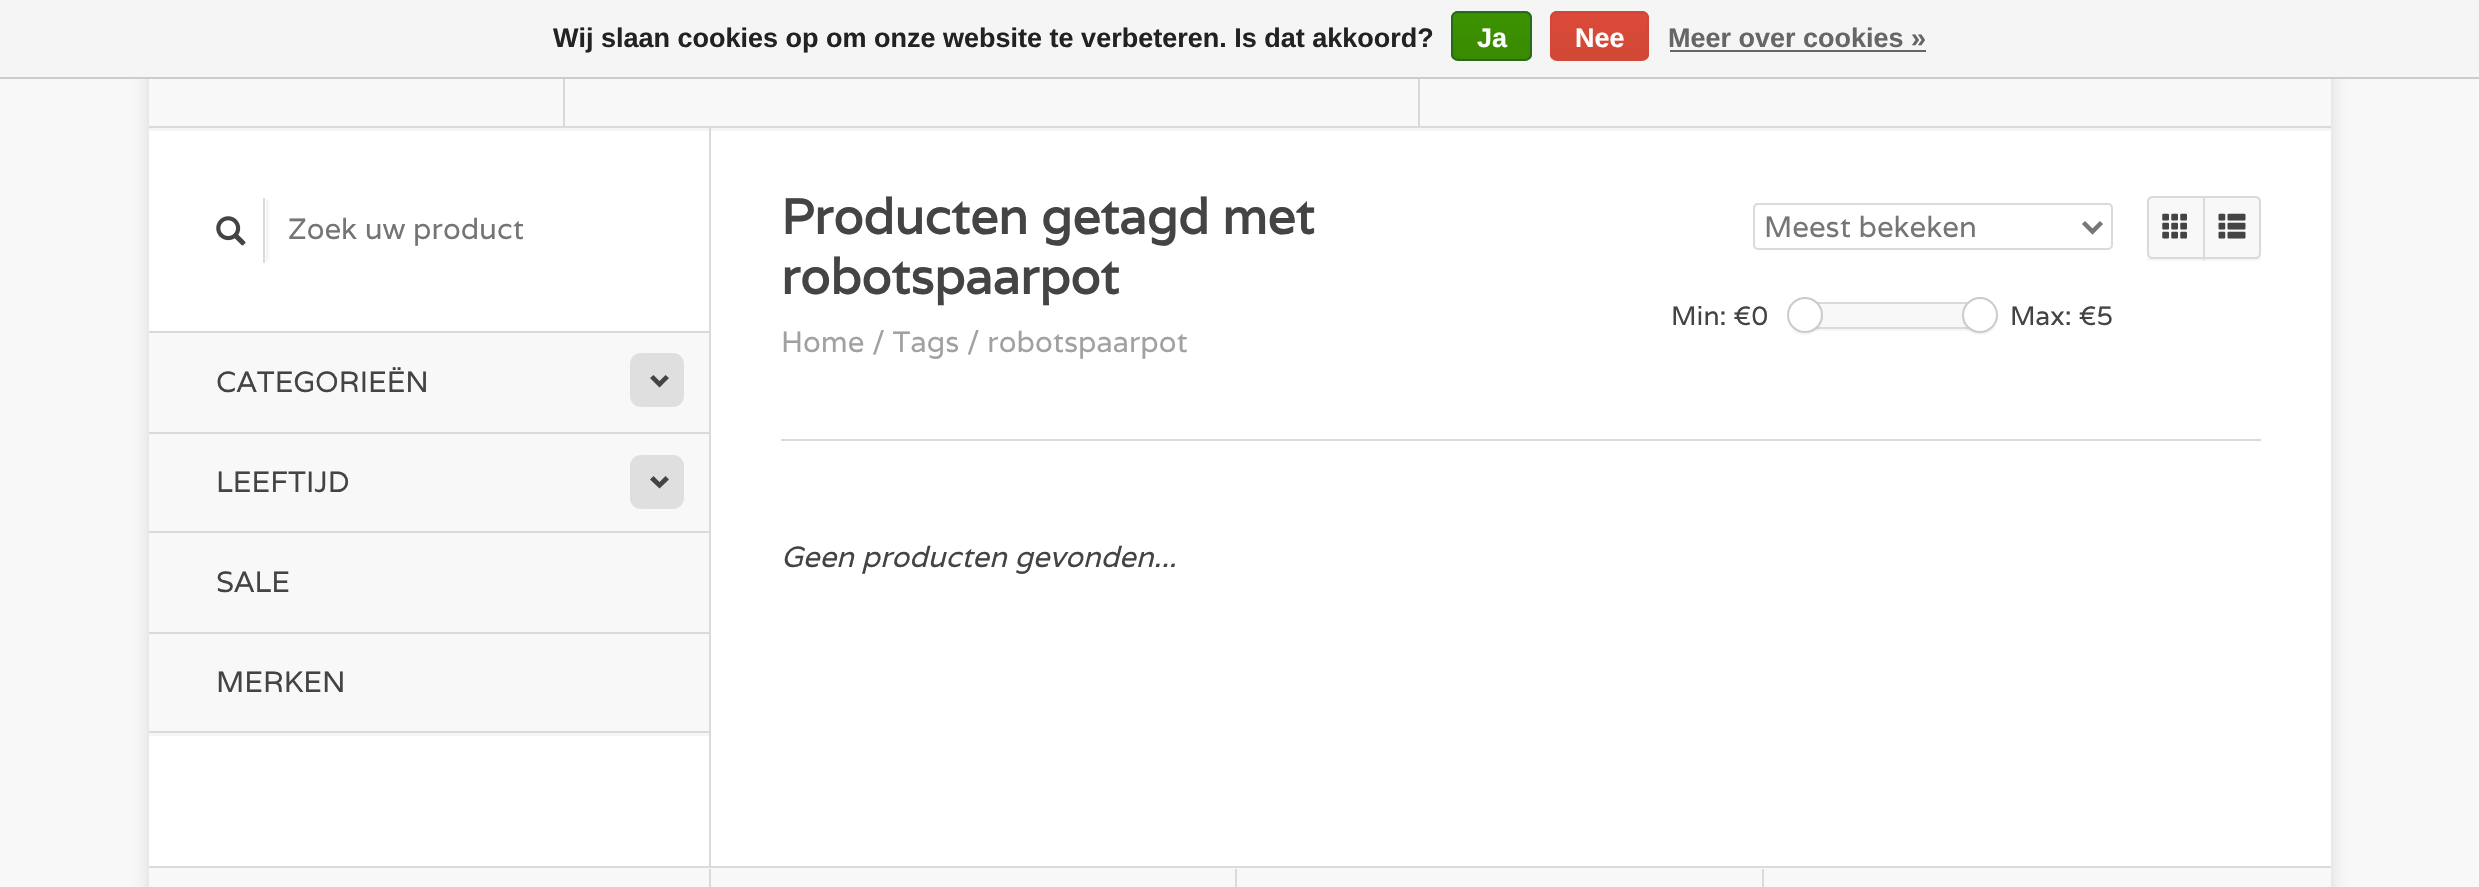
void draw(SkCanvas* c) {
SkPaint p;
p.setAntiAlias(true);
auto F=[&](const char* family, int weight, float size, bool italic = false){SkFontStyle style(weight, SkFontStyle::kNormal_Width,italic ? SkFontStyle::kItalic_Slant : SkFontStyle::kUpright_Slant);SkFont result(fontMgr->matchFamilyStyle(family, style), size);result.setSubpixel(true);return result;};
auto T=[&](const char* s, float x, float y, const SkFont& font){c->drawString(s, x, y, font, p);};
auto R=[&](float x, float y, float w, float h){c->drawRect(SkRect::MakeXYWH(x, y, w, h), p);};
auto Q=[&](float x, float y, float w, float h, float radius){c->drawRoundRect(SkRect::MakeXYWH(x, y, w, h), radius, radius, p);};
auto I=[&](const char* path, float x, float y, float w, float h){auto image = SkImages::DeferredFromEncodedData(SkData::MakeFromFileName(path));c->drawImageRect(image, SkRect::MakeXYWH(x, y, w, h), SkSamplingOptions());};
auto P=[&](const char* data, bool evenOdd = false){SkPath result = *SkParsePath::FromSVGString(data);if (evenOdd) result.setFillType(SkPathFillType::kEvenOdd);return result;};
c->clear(0xfff8f8f8);
p.setColor(0x21000000);
p.setMaskFilter(SkMaskFilter::MakeBlur(kNormal_SkBlurStyle, 8));
c->drawRoundRect(SkRect::MakeXYWH(149,2,2182,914),5,5,p);
p.setMaskFilter(nullptr);
p.setColor(0xfff5f5f5);
R(0,0,2479,77);
p.setColor(0xffcccccc);
R(0,77,2479,2);
auto f1 = F("Liberation Sans",700,27);
p.setColor(0xff222222);
T("Wij slaan cookies op om onze website te verbeteren. Is dat akkoord?",553,47,f1);
c->save();
c->clipPath(P("M1458 11h67c4 0 7 3 7 7v36c0 4-3 7-7 7h-67c-4 0-7-3-7-7v-36c0-4 3-7 7-7z"),true);
{
const SkColor colors[] = {0xff3c9300,0xff398a00};
const float stops[] = {0,1};
const SkPoint ends[] = {{1492,-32}, {1492,14}};
p.setShader(SkGradientShader::MakeLinear(ends, colors, stops, 2, SkTileMode::kClamp));
p.setAlpha(255);
}
R(1451,11,81,3);
{
const SkColor colors[] = {0xff3c9300,0xff398a00};
const float stops[] = {0,1};
const SkPoint ends[] = {{1492,13}, {1492,59}};
p.setShader(SkGradientShader::MakeLinear(ends, colors, stops, 2, SkTileMode::kClamp));
p.setAlpha(255);
}
R(1451,14,81,45);
c->restore();
p.setStroke(true);
p.setStrokeWidth(2);
p.setShader(nullptr);
p.setColor(0xff29691d);
c->drawRoundRect(SkRect::MakeXYWH(1452,12,79,48),6,6,p);
p.setStroke(false);
p.setColor(0xffffffff);
T("Ja",1477,47,f1);
c->save();
c->clipPath(P("M1557 11h85c4 0 7 3 7 7v36c0 4-3 7-7 7h-85c-4 0-7-3-7-7v-36c0-4 3-7 7-7z"),true);
{
const SkColor colors[] = {0xffdc4a38,0xffd14836};
const float stops[] = {0,1};
const SkPoint ends[] = {{1600,-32}, {1600,14}};
p.setShader(SkGradientShader::MakeLinear(ends, colors, stops, 2, SkTileMode::kClamp));
p.setAlpha(255);
}
R(1550,11,99,3);
{
const SkColor colors[] = {0xffdc4a38,0xffd14836};
const float stops[] = {0,1};
const SkPoint ends[] = {{1600,13}, {1600,59}};
p.setShader(SkGradientShader::MakeLinear(ends, colors, stops, 2, SkTileMode::kClamp));
p.setAlpha(255);
}
R(1550,14,99,45);
c->restore();
p.setStroke(true);
p.setShader(nullptr);
p.setColor(0xffd14836);
c->drawRoundRect(SkRect::MakeXYWH(1551,12,97,48),6,6,p);
p.setStroke(false);
p.setColor(0xffffffff);
T("Nee",1575,47,f1);
p.setColor(0xff666666);
T("Meer over cookies »",1668,47,f1);
R(1670,50,256,2);
p.setColor(0xffffffff);
R(149,131,2182,735);
p.setColor(0xfff5f5f5);
R(149,128,2182,3);
p.setColor(0xffdadada);
R(149,126,2182,2);
p.setColor(0xfff8f8f8);
R(149,79,414,47);
R(565,79,853,47);
R(1420,79,911,47);
p.setColor(0xffdadada);
R(709,128,2,738);
c->save();
c->clipPath(P("M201 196h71v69h-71zm-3 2h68v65h-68z",true),true);
p.setColor(0x0f000000);
p.setMaskFilter(SkMaskFilter::MakeBlur(kNormal_SkBlurStyle, 1));
c->drawRect(SkRect::MakeXYWH(205,200,63,61),p);
p.setMaskFilter(nullptr);
c->restore();
p.setColor(0xffdadada);
R(263,198,2,65);
I("1.png",216,216,30,30);
auto f2 = F("Varela",400,29.25);
p.setColor(0xff757575);
T("Zoek uw product",288,239,f2);
p.setColor(0xfff8f8f8);
R(149,333,560,99);
p.setColor(0xffdadada);
R(149,331,560,2);
p.setColor(0xff444444);
T("CATEGORIEËN",216,392,f2);
p.setColor(0xffdfdfdf);
Q(630,353,54,54,11);
p.setColor(0xff444444);
c->drawPath(P("M669 378l-9.5 9.5l-9.5-9.5l3.5-3l6 6l6-6z"),p);
p.setColor(0xfff8f8f8);
R(149,434,560,97);
p.setColor(0xffdadada);
R(149,432,560,2);
p.setColor(0xff444444);
T("LEEFTIJD",216,492,f2);
p.setColor(0xffdfdfdf);
Q(630,455,54,54,11);
p.setColor(0xff444444);
c->drawPath(P("M669 479.5l-9.5 9l-9.5-9l3.5-3.5l6 6l6-6z"),p);
p.setColor(0xfff8f8f8);
R(149,533,560,99);
p.setColor(0xffdadada);
R(149,531,560,2);
p.setColor(0xff444444);
T("SALE",216,592,f2);
p.setColor(0xfff5f5f5);
c->drawPath(P("M149 734v2h560v-101v99z"),p);
p.setColor(0xfff8f8f8);
R(149,634,560,100);
p.setColor(0xffdadada);
R(149,632,560,2);
R(149,731,560,2);
p.setColor(0xff444444);
T("MERKEN",216,692,f2);
auto f3 = F("Varela",700,49.4);
T("Producten getagd met",781,234,f3);
T("robotspaarpot",781,294,f3);
p.setColor(0xffa1a1a1);
T("Home / Tags / robotspaarpot",781,352,f2);
p.setStroke(true);
p.setColor(0xffdadada);
c->drawRoundRect(SkRect::MakeXYWH(1754,204,358,45),4,4,p);
p.setStrokeWidth(4.5);
p.setColor(0xff777777);
c->drawPath(P("M2083.5 222.5l9 9l9-9"),p);
p.setStroke(false);
p.setColor(0xff757575);
T("Meest bekeken",1764,237,f2);
p.setColor(0xfff5f5f5);
c->drawPath(P("M2147 256c0 3 2 5 5 5h53v-2h-54c-2 0-3-1-4-3z"),p);
p.setColor(0xfff8f8f8);
c->drawPath(P("M2152 197h52v61h-52c-2 0-4-2-4-4v-53c0-2 2-4 4-4z"),p);
p.setStroke(true);
p.setStrokeWidth(2);
p.setColor(0xffdadada);
c->drawPath(P("M2152 197h52v61h-52c-2 0-4-2-4-4v-53c0-2 2-4 4-4z"),p);
I("2.png",2162,213,25,26);
p.setStroke(false);
p.setColor(0x0a000000);
c->drawPath(P("M2203 259v2h53c3 0 5-2 5-5c-1 1-2 3-4 3z"),p);
p.setColor(0xfff8f8f8);
c->drawPath(P("M2204 197h52c2 0 4 2 4 4v53c0 2-2 4-4 4h-52z"),p);
p.setStroke(true);
p.setColor(0xffdadada);
c->drawPath(P("M2204 197h52c2 0 4 2 4 4v53c0 2-2 4-4 4h-52z"),p);
I("3.png",2218,213,28,26);
auto f4 = F("Varela",400,26.5);
p.setStroke(false);
p.setColor(0xff444444);
T("Min: €0",1671,325,f4);
p.setColor(0x0a000000);
R(1807,329,165,2);
p.setColor(0xfff8f8f8);
R(1818,304,149,23);
p.setStroke(true);
p.setColor(0xffdadada);
c->drawRect(SkRect::MakeXYWH(1808,303,173,25),p);
p.setStroke(false);
p.setColor(0x0a000000);
c->drawPath(P("M1787.5 320.5c.5 4 3 7.5 6 10.5c14 11.5 34-2.5 28.5-19.5c4.5 22-28 30-34.5 9z"),p);
p.setColor(0xffffffff);
c->drawCircle(1805,315,17,p);
p.setStroke(true);
p.setColor(0xffcbcbcb);
c->drawCircle(1805,315,17,p);
p.setStroke(false);
p.setColor(0x0a000000);
c->drawPath(P("M1998 316c-1.5 22.5-34.5 22.5-36 0c-1 18 23 26 33 11c2-3 3-7 3-11z"),p);
p.setColor(0xffffffff);
c->drawCircle(1980,315,17,p);
p.setStroke(true);
p.setColor(0xffcbcbcb);
c->drawCircle(1980,315,17,p);
p.setStroke(false);
p.setColor(0xff444444);
T("Max: €5",2010,325,f4);
p.setColor(0xffdadada);
R(781,439,1480,2);
auto f5 = F("Varela",400,29.25,true);
p.setColor(0xff444444);
T("Geen producten gevonden...",781,567,f5);
p.setColor(0xfff8f8f8);
R(149,868,2182,19);
p.setColor(0xffdadada);
R(149,866,2182,2);
R(709,869,2,18);
R(1235,869,2,18);
R(1762,869,2,18);
}
